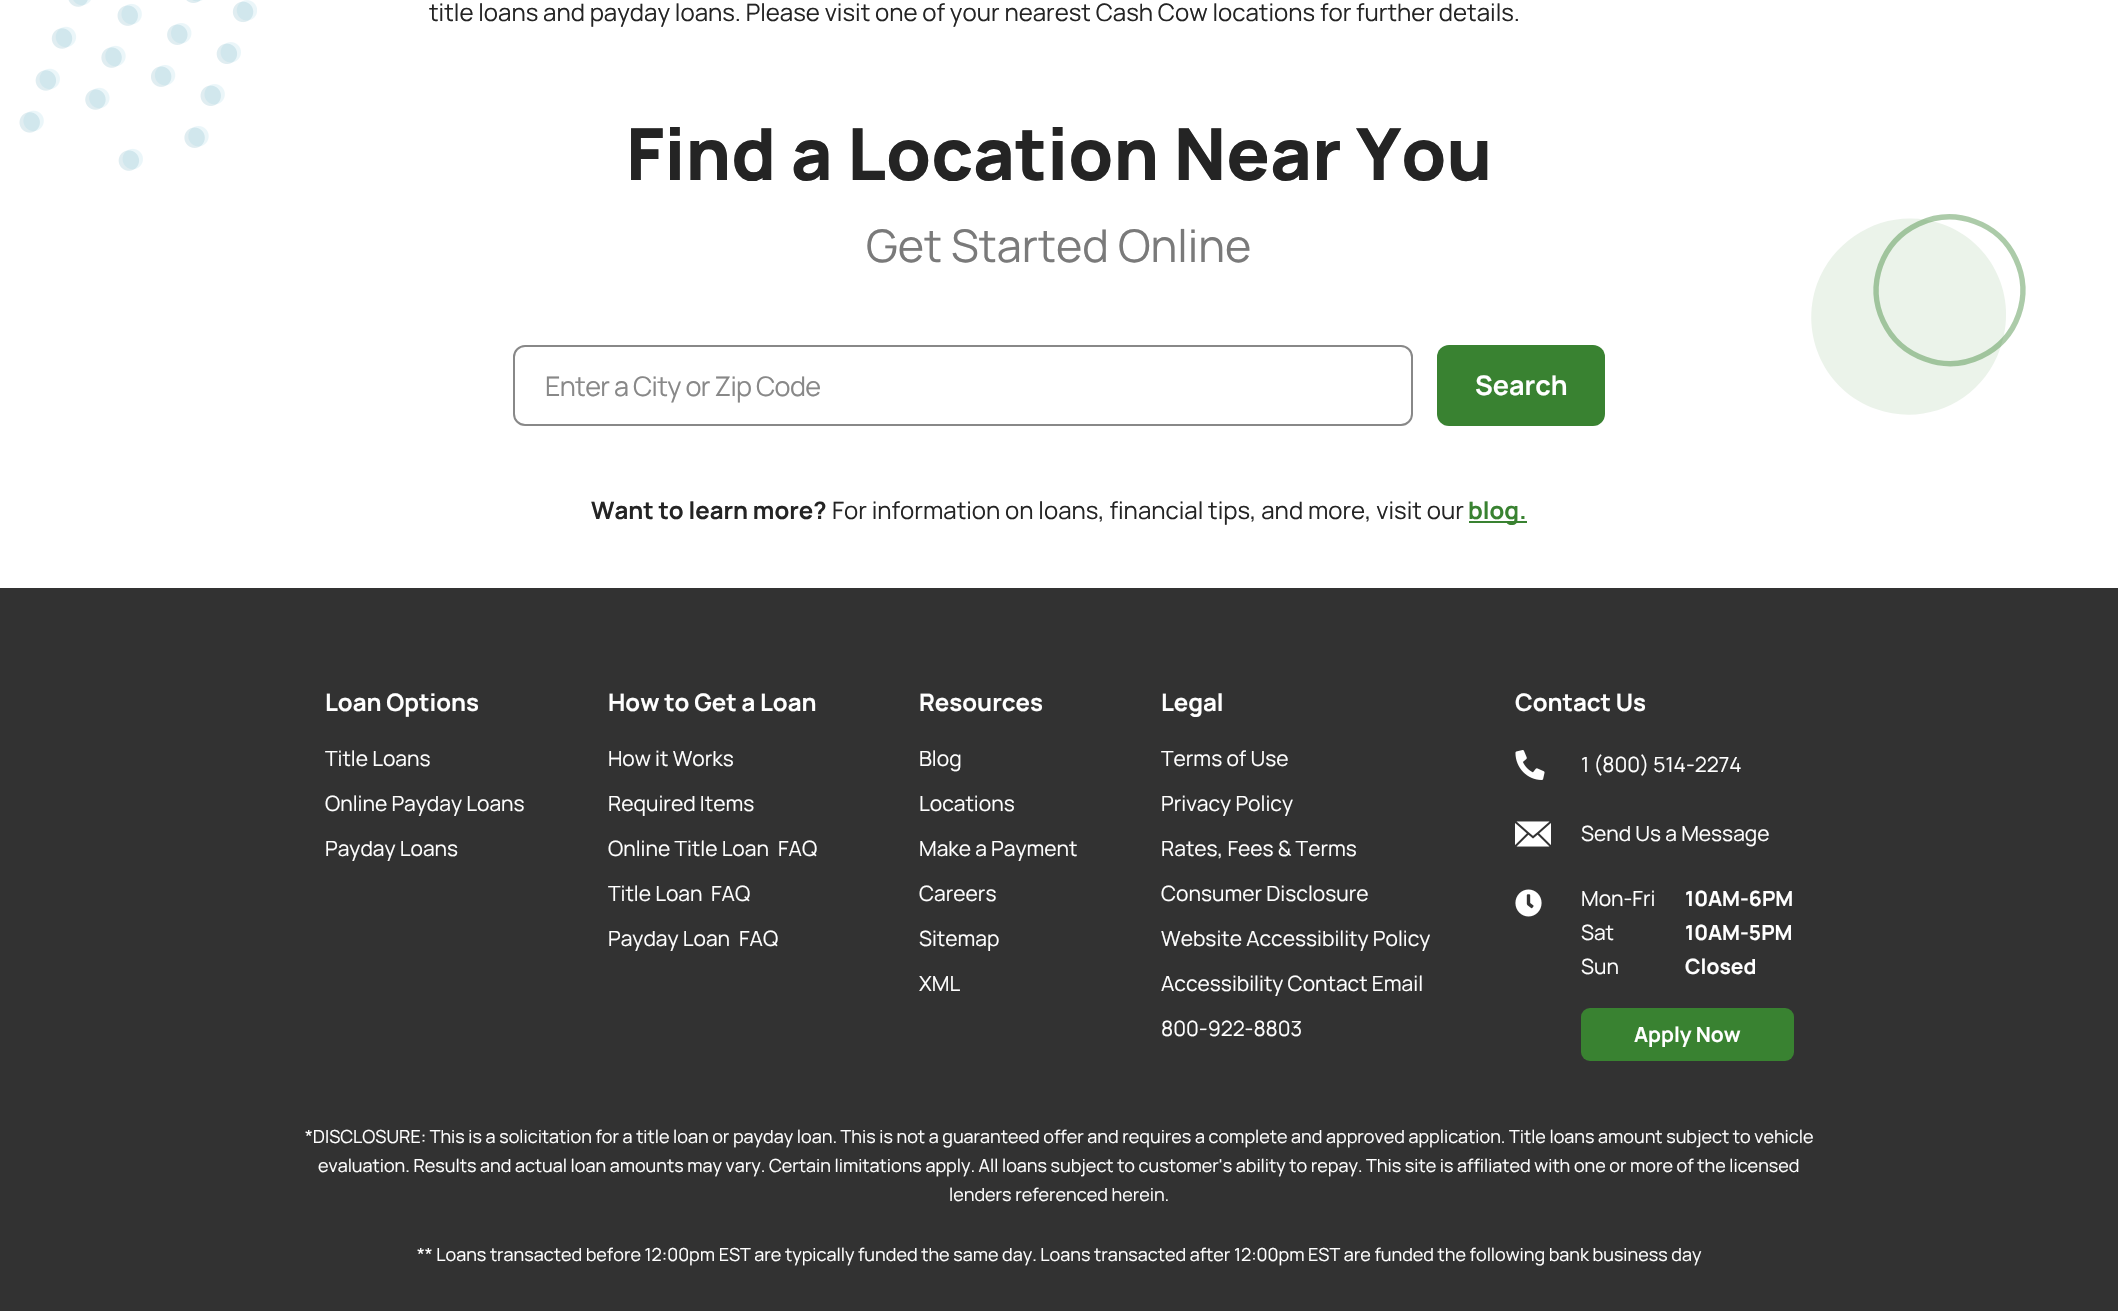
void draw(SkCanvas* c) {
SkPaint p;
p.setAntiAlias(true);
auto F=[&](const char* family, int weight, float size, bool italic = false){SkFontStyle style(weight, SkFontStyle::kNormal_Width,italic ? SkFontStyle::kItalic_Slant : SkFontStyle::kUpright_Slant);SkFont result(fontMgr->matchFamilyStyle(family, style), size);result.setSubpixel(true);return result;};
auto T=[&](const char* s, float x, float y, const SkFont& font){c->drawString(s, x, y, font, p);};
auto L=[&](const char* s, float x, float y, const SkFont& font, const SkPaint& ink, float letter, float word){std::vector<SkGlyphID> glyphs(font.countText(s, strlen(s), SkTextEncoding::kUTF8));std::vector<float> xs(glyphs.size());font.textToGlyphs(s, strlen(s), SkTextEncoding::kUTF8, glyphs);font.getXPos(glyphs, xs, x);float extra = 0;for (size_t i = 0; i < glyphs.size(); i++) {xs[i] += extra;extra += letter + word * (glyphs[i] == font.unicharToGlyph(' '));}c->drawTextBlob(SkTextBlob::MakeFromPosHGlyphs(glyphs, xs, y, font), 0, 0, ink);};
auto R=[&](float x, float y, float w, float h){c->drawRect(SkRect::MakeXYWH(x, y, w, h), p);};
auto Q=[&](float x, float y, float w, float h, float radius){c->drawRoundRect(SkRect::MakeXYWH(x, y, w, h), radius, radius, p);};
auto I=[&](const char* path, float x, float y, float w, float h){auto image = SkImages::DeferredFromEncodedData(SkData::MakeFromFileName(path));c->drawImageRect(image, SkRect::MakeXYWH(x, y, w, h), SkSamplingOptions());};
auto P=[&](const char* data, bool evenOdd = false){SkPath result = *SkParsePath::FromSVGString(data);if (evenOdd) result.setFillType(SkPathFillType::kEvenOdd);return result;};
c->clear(0xffffffff);
I("1.png",19,0,238,171);
p.setColor(0xffebf3ea);
c->drawPath(P("M1942 224c51 18 77 74 58 125c-18 52-74 78-124 60c-51-18-77-74-59-125c19-51 75-78 125-60z"),p);
p.setStroke(true);
p.setStrokeWidth(5.4);
p.setColor(0x6b398231);
c->drawPath(P("M1974.5 221.5c38 13.5 57.5 55.5 44 93.5c-13.5 38-55.5 58-93.5 44c-38.5-13.5-58-55.5-44.5-93.5c14-38 56-58 94-44z"),p);
auto f1 = F("Manrope",400,24);
p.setStroke(false);
p.setColor(0xff242424);
T("title loans and payday loans. Please visit one of your nearest Cash Cow locations for further details.",429,21,f1);
auto f2 = F("Manrope",800,72);
T("Find a Location Near You",626,180,f2);
auto f3 = F("Manrope",400,45);
p.setColor(0xff7a7a7a);
T("Get Started Online",866,262,f3);
p.setStroke(true);
p.setStrokeWidth(2);
p.setColor(0xff888888);
c->drawRoundRect(SkRect::MakeXYWH(514,346,898,79),11,11,p);
auto f4 = F("Manrope",400,27);
p.setStroke(false);
L("Enter a City or Zip Code",545,396,f4,p,-.7,0);
p.setColor(0xff398231);
Q(1437,345,168,81,12);
auto f5 = F("Manrope",700,27);
p.setColor(0xffffffff);
T("Search",1475,395,f5);
auto f6 = F("Manrope",700,24);
p.setColor(0xff242424);
T("Want to learn more?",591,519,f6);
T("For information on loans, financial tips, and more, visit our",832,519,f1);
p.setColor(0xff398231);
R(1469,521,58,2);
T("blog.",1468,519,f6);
p.setColor(0xff323232);
R(0,588,2118,723);
p.setColor(0xffffffff);
T("Loan Options",325,711,f6);
auto f7 = F("Manrope",400,21);
T("Title Loans",325,766,f7);
T("Online Payday Loans",325,811,f7);
T("Payday Loans",325,856,f7);
T("How to Get a Loan",608,711,f6);
T("How it Works",608,766,f7);
T("Required Items",608,811,f7);
T("Online Title Loan",608,856,f7);
T("FAQ",778,856,f7);
T("Title Loan",608,901,f7);
T("FAQ",711,901,f7);
T("Payday Loan",608,946,f7);
T("FAQ",739,946,f7);
T("Resources",919,711,f6);
T("Blog",919,766,f7);
T("Locations",919,811,f7);
T("Make a Payment",919,856,f7);
T("Careers",919,901,f7);
T("Sitemap",919,946,f7);
T("XML",919,991,f7);
T("Legal",1161,711,f6);
T("Terms of Use",1161,766,f7);
T("Privacy Policy",1161,811,f7);
T("Rates, Fees & Terms",1161,856,f7);
T("Consumer Disclosure",1161,901,f7);
T("Website Accessibility Policy",1161,946,f7);
T("Accessibility Contact Email",1161,991,f7);
T("800-922-8803",1161,1036,f7);
T("Contact Us",1515,711,f6);
I("2.png",1515,750,30,30);
T("1 (800) 514-2274",1581,772,f7);
I("3.png",1515,821,36,26);
T("Send Us a Message",1581,841,f7);
I("4.png",1515,889,27,28);
T("Mon-Fri",1581,906,f7);
T("Sat",1581,940,f7);
T("Sun",1581,974,f7);
auto f8 = F("Manrope",700,21);
T("10AM-6PM",1685,906,f8);
T("10AM-5PM",1685,940,f8);
T("Closed",1685,974,f8);
p.setColor(0xff398231);
Q(1581,1008,213,53,9);
p.setColor(0xffffffff);
T("Apply Now",1634,1042,f8);
auto f9 = F("Manrope",400,18);
T("*DISCLOSURE: This is a solicitation for a title loan or payday loan. This is not a guaranteed offer and requires a complete and approved application. Title loans amount subject to vehicle",305,1143,f9);
T("evaluation. Results and actual loan amounts may vary. Certain limitations apply. All loans subject to customer's ability to repay. This site is affiliated with one or more of the licensed",318,1172,f9);
T("lenders referenced herein.",949,1201,f9);
T("** Loans transacted before 12:00pm EST are typically funded the same day. Loans transacted after 12:00pm EST are funded the following bank business day",417,1261,f9);
}
